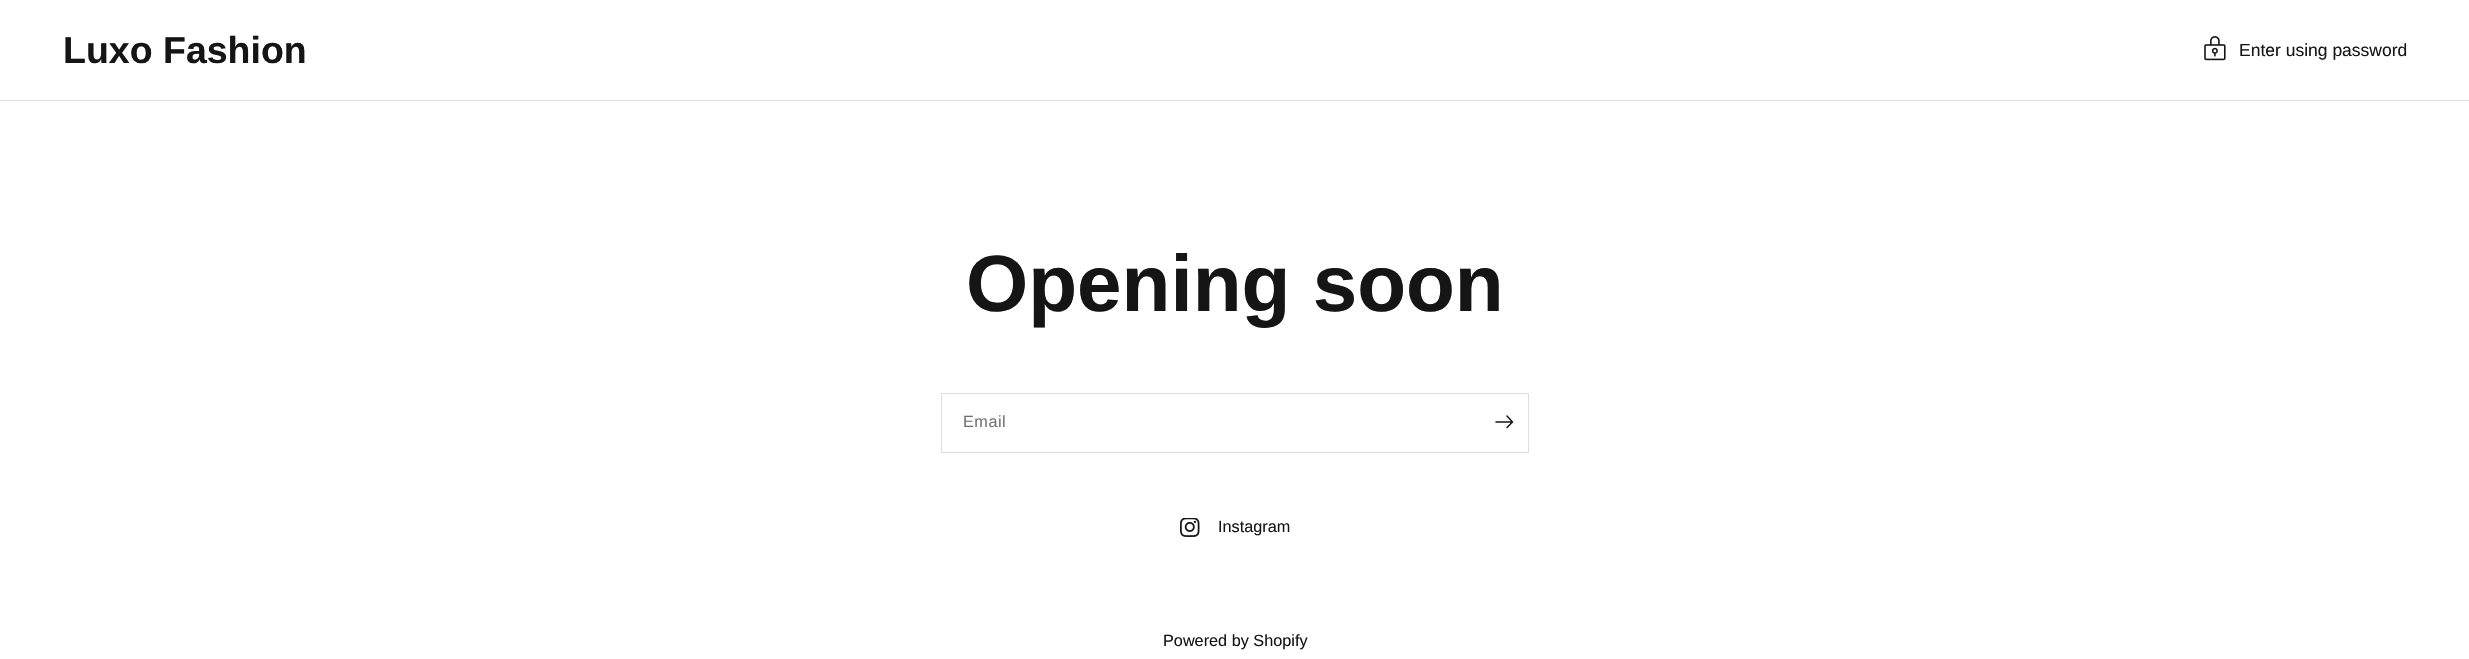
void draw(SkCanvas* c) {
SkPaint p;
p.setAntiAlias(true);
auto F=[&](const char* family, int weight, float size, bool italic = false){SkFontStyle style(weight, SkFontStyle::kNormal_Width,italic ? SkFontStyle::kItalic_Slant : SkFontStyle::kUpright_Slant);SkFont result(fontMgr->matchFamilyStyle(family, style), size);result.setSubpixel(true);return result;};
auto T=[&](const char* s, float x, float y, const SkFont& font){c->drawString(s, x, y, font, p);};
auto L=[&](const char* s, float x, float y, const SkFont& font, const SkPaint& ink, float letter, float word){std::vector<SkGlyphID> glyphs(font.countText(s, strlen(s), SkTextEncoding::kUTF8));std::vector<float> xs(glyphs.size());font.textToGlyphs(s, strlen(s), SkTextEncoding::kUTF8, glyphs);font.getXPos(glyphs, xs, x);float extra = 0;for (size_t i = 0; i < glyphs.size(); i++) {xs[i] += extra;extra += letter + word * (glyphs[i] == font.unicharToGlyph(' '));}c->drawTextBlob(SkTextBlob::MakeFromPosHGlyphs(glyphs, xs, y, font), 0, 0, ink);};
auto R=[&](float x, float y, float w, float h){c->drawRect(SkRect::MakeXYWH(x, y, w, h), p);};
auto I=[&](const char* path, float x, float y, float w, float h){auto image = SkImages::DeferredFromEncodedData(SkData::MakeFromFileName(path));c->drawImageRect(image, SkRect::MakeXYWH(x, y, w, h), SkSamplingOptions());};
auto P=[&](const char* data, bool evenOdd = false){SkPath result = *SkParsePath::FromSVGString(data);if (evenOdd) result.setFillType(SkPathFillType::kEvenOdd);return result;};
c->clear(0xffffffff);
p.setColor(0xffe2e2e2);
R(0,100,2469,1);
auto f1 = F("Liberation Sans",700,37.5);
p.setColor(0xff151515);
T("Luxo Fashion",63,63,f1);
I("1.png",2204,36,22,25);
auto f2 = F("Liberation Sans",400,17.5);
T("Enter using password",2239,56,f2);
auto f3 = F("Liberation Sans",700,80);
T("Opening soon",966,311,f3);
p.setStroke(true);
p.setStrokeWidth(1);
p.setColor(0xffdedede);
c->drawRect(SkRect::MakeXYWH(941.5,393.5,587,59),p);
auto f4 = F("Liberation Sans",400,16.25);
p.setStroke(false);
p.setColor(0xff737373);
L("Email",963,427,f4,p,.5,0);
p.setStroke(true);
p.setStrokeWidth(1.5);
p.setStrokeCap(SkPaint::kRound_Cap);
p.setStrokeJoin(SkPaint::kRound_Join);
p.setColor(0xff151515);
c->drawPath(P("M1496 422h15m-4-6l5.5 6l-5.5 5.5"),p);
I("2.png",1180,518,20,19);
p.setStroke(false);
T("Instagram",1218,532,f4);
T("Powered by Shopify",1163,646,f4);
}
